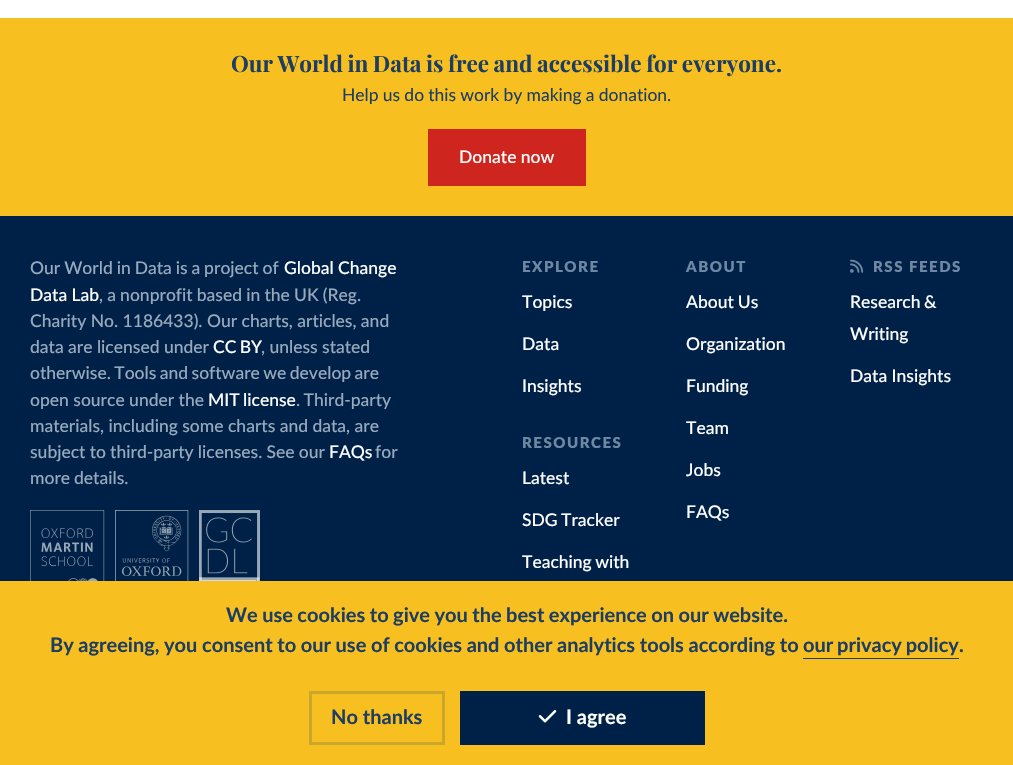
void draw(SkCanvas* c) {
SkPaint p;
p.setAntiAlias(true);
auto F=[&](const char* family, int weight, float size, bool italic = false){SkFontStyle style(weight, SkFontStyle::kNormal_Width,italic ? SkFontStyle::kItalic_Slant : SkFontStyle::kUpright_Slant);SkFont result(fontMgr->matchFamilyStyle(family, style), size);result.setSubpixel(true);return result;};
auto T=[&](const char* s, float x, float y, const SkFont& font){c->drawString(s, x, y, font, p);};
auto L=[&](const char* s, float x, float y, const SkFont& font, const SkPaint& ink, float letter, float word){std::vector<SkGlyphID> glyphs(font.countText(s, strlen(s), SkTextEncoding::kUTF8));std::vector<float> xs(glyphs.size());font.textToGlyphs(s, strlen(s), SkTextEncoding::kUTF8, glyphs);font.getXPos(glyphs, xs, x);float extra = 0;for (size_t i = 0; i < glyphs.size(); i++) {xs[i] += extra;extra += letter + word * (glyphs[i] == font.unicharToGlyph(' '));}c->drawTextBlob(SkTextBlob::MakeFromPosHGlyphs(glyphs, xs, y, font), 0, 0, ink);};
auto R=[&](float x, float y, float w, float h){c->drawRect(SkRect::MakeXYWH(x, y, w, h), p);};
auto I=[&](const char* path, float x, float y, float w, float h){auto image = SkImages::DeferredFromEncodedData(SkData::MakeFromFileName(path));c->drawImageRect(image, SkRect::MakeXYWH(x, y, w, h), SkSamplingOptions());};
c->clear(0xffffffff);
p.setColor(0xfff7c020);
R(0,18,1013,198);
auto f1 = F("Playfair Display",700,22.5);
p.setColor(0xff1d3d63);
L("Our World in Data is free and accessible for everyone.",231,72,f1,p,0,-.75);
auto f2 = F("Lato",400,17.5);
L("Help us do this work by making a donation.",342,101,f2,p,0,-.25);
p.setColor(0xffce261e);
R(428,129,158,57);
auto f3 = F("Lato",500,17.5);
p.setColor(0xffffffff);
T("Donate now",459,163,f3);
p.setColor(0xff002147);
R(0,216,1013,365);
p.setColor(0xff98a9bd);
L("Our World in Data is a project of",30,274,f3,p,0,-.5);
p.setColor(0xffffffff);
T("Global Change",284,274,f3);
T("Data Lab",30,301,f3);
p.setColor(0xff98a9bd);
L(", a nonprofit based in the UK (Reg.",99,301,f3,p,0,-.25);
T("Charity No. 1186433). Our charts, articles, and",30,327,f3);
T("data are licensed under",30,353,f3);
p.setColor(0xffffffff);
L("CC BY",213,353,f3,p,0,-1);
p.setColor(0xff98a9bd);
T(", unless stated",261,353,f3);
L("otherwise. Tools and software we develop are",30,379,f3,p,0,-1);
T("open source under the",30,406,f3);
p.setColor(0xffffffff);
L("MIT license",208,406,f3,p,0,-1);
p.setColor(0xff98a9bd);
L(". Third-party",296,406,f3,p,0,-1);
T("materials, including some charts and data, are",30,432,f3);
L("subject to third-party licenses. See our",30,458,f3,p,0,-.25);
p.setColor(0xffffffff);
T("FAQs",329,458,f3);
p.setColor(0xff98a9bd);
T("for",375,458,f3);
L("more details.",30,484,f3,p,0,-.5);
I("1.png",30,510,75,71);
I("2.png",115,510,74,71);
I("3.png",199,510,61,71);
auto f4 = F("Lato",900,15);
p.setColor(0xff6e87a2);
L("EXPLORE",522,272,f4,p,1.5,0);
p.setColor(0xffffffff);
T("Topics",522,308,f3);
T("Data",522,350,f3);
T("Insights",522,392,f3);
p.setColor(0xff6e87a2);
L("RESOURCES",522,448,f4,p,1.5,0);
p.setColor(0xffffffff);
T("Latest",522,484,f3);
L("SDG Tracker",522,526,f3,p,0,-1);
L("Teaching with",522,568,f3,p,0,-1);
p.setColor(0xff6e87a2);
L("ABOUT",686,272,f4,p,1.5,0);
p.setColor(0xffffffff);
L("About Us",686,308,f3,p,0,-.5);
T("Organization",686,350,f3);
T("Funding",686,392,f3);
T("Team",686,434,f3);
T("Jobs",686,476,f3);
T("FAQs",686,518,f3);
I("4.png",850,259,14,14);
p.setColor(0xff6e87a2);
L("RSS FEEDS",873,272,f4,p,1.5,0);
p.setColor(0xffffffff);
L("Research &",850,308,f3,p,0,-1);
T("Writing",850,340,f3);
T("Data Insights",850,382,f3);
p.setColor(0xfff7c020);
R(0,581,1013,184);
auto f5 = F("Lato",700,20);
p.setColor(0xff1d3d63);
L("We use cookies to give you the best experience on our website.",226,622,f5,p,0,-.4);
L("By agreeing, you consent to our use of cookies and other analytics tools according to",50,652,f5,p,0,-.25);
L("our privacy policy",803,652,f5,p,0,-1);
R(803,658,156,1);
T(".",959,652,f5);
p.setStroke(true);
p.setStrokeWidth(3);
p.setColor(0xffcba62d);
c->drawRect(SkRect::MakeXYWH(310.5,692.5,133,51),p);
p.setStroke(false);
p.setColor(0xff1d3d63);
T("No thanks",331,724,f5);
p.setColor(0xff002147);
R(460,691,245,54);
I("5.png",538,710,19,13);
p.setColor(0xffffffff);
T("I agree",566,724,f5);
}
